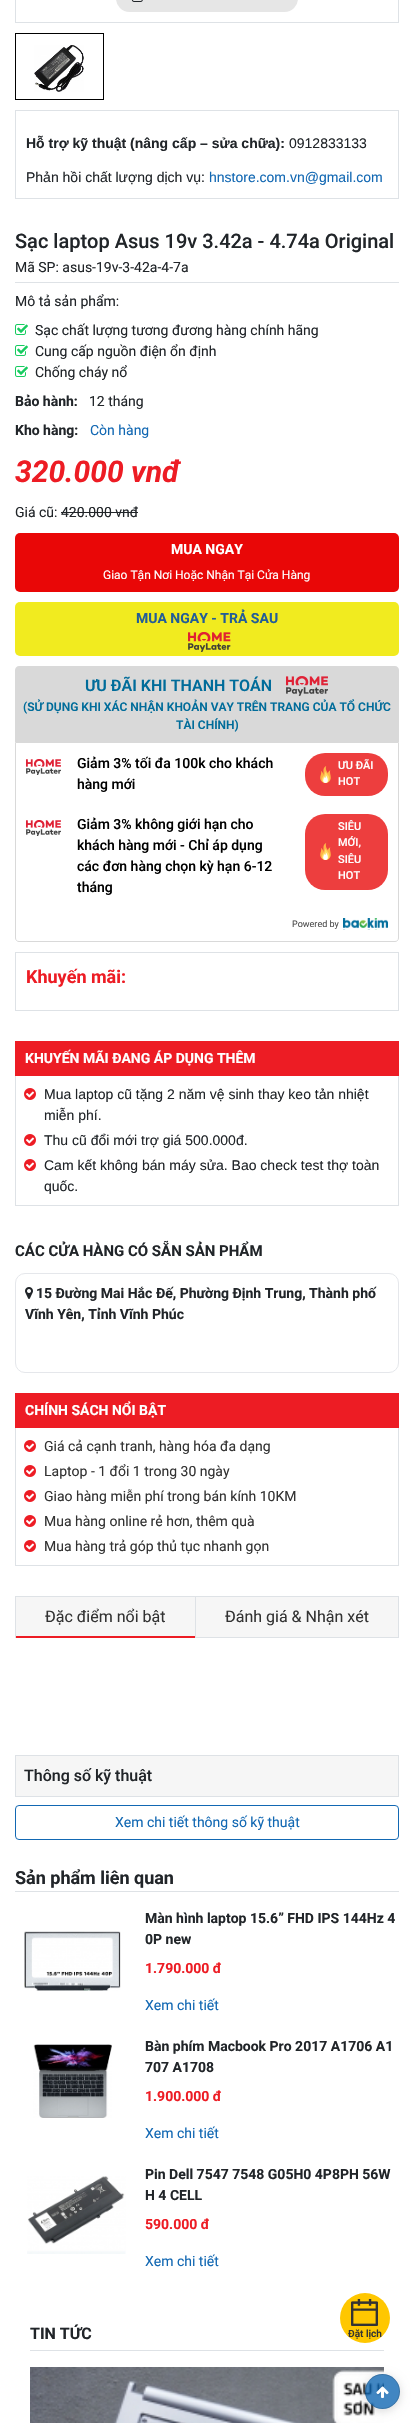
void draw(SkCanvas* c) {
SkPaint p;
p.setAntiAlias(true);
auto F=[&](const char* family, int weight, float size, bool italic = false){SkFontStyle style(weight, SkFontStyle::kNormal_Width,italic ? SkFontStyle::kItalic_Slant : SkFontStyle::kUpright_Slant);SkFont result(fontMgr->matchFamilyStyle(family, style), size);result.setSubpixel(true);return result;};
auto T=[&](const char* s, float x, float y, const SkFont& font){c->drawString(s, x, y, font, p);};
auto R=[&](float x, float y, float w, float h){c->drawRect(SkRect::MakeXYWH(x, y, w, h), p);};
auto Q=[&](float x, float y, float w, float h, float radius){c->drawRoundRect(SkRect::MakeXYWH(x, y, w, h), radius, radius, p);};
auto I=[&](const char* path, float x, float y, float w, float h){auto image = SkImages::DeferredFromEncodedData(SkData::MakeFromFileName(path));c->drawImageRect(image, SkRect::MakeXYWH(x, y, w, h), SkSamplingOptions());};
auto P=[&](const char* data, bool evenOdd = false){SkPath result = *SkParsePath::FromSVGString(data);if (evenOdd) result.setFillType(SkPathFillType::kEvenOdd);return result;};
c->clear(0xffffffff);
p.setStroke(true);
p.setStrokeWidth(1);
p.setColor(0xffdee2e6);
c->drawRect(SkRect::MakeXYWH(15.5,-.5,383,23),p);
p.setStroke(false);
p.setColor(0xffe6e6e6);
Q(116,-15,182,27,15);
I("1.png",131,0,12,2);
p.setStroke(true);
p.setColor(0xff000000);
c->drawRect(SkRect::MakeXYWH(15.5,33.5,88,66),p);
I("2.png",34,45,50,47);
p.setColor(0xffdee2e6);
c->drawRect(SkRect::MakeXYWH(15.5,110.5,383,88),p);
auto f1 = F("Liberation Sans",700,14);
p.setStroke(false);
p.setColor(0xff212529);
T("Hỗ trợ kỹ thuật (nâng cấp – sửa chữa):",26,148,f1);
auto f2 = F("Liberation Sans",400,14);
T("0912833133",289,148,f2);
T("Phản hồi chất lượng dịch vụ:",26,182,f2);
p.setColor(0xff1268b3);
T("hnstore.com.vn@gmail.com",209,182,f2);
auto f3 = F("Roboto",500,20);
p.setColor(0xff212529);
T("Sạc laptop Asus 19v 3.42a - 4.74a Original",15,248,f3);
p.setColor(0xffdee2e6);
R(15,282,384,1);
auto f4 = F("Roboto",400,14);
p.setColor(0xff212529);
T("Mã SP: asus-19v-3-42a-4-7a",15,272,f4);
T("Mô tả sản phẩm:",15,306,f4);
I("3.png",15,324,13,11);
T("Sạc chất lượng tương đương hàng chính hãng",35,335,f4);
I("3.png",15,345,13,11);
T("Cung cấp nguồn điện ổn định",35,356,f4);
I("3.png",15,366,13,11);
T("Chống cháy nổ",35,377,f4);
auto f5 = F("Roboto",700,14);
T("Bảo hành:",15,406,f5);
T("12 tháng",89,406,f4);
T("Kho hàng:",15,435,f5);
p.setColor(0xff1268b3);
T("Còn hàng",90,435,f4);
auto f6 = F("Roboto",700,30,true);
p.setColor(0xffed1c24);
T("320.000 vnđ",15,482,f6);
p.setColor(0xff212529);
T("Giá cũ: 420.000 vnđ",15,517,f4);
R(61,512,77,1);
p.setColor(0xffe90707);
Q(15,533,384,59,5);
p.setColor(0xffffffff);
T("MUA NGAY",171,554,f5);
auto f7 = F("Roboto",400,12);
T("Giao Tận Nơi Hoặc Nhận Tại Cửa Hàng",103,579,f7);
p.setColor(0xfff1eb1f);
Q(15,602,384,54,5);
p.setColor(0xff235d97);
T("MUA NGAY - TRẢ SAU",136,623,f5);
I("4.png",188,632,43,20);
p.setColor(0xffd9d9d9);
c->drawPath(P("M19 666h376c2 0 4 2 4 4v72h-384v-72c0-2 2-4 4-4z"),p);
auto f8 = F("Roboto",600,16);
p.setColor(0xff006c9a);
T("ƯU ĐÃI KHI THANH TOÁN",85,691,f8);
I("5.png",286,676,42,20);
auto f9 = F("Roboto",600,12);
T("(SỬ DỤNG KHI XÁC NHẬN KHOẢN VAY TRÊN TRANG CỦA TỔ CHỨC",23,711,f9);
T("TÀI CHÍNH)",176,729,f9);
p.setStroke(true);
p.setColor(0xffd9d9d9);
c->drawPath(P("M15.5 742.5h383v195.5c0 2-1.5 3.5-3.5 3.5h-376c-2 0-3.5-1.5-3.5-3.5z"),p);
I("6.png",26,759,35,16);
auto f10 = F("Roboto",500,14);
p.setStroke(false);
p.setColor(0xff000000);
T("Giảm 3% tối đa 100k cho khách",77,768,f10);
T("hàng mới",77,789,f10);
p.setColor(0xffed3e3e);
Q(305,753,83,43,20);
auto f11 = F("Roboto",500,11);
p.setColor(0xffffffff);
T("ƯU ĐÃI",338,769,f11);
I("7.png",320,766,11,17);
T("HOT",338,785,f11);
I("6.png",26,820,35,16);
p.setColor(0xff000000);
T("Giảm 3% không giới hạn cho",77,829,f10);
T("khách hàng mới - Chỉ áp dụng",77,850,f10);
T("các đơn hàng chọn kỳ hạn 6-12",77,871,f10);
T("tháng",77,892,f10);
p.setColor(0xffed3e3e);
Q(305,814,83,76,20);
p.setColor(0xffffffff);
T("SIÊU",338,830,f11);
I("7.png",320,843,11,17);
T("MỚI,",338,846,f11);
T("SIÊU",338,863,f11);
T("HOT",338,879,f11);
auto f12 = F("Roboto",400,9);
p.setColor(0xff4d4d4d);
T("Powered by",292,927,f12);
I("8.png",343,918,45,12);
p.setStroke(true);
p.setColor(0xffdee2e6);
c->drawRect(SkRect::MakeXYWH(15.5,952.5,383,58),p);
auto f13 = F("Roboto",700,18);
p.setStroke(false);
p.setColor(0xffed1c24);
T("Khuyến mãi:",26,983,f13);
R(15,1041,384,35);
p.setColor(0xffffffff);
T("KHUYẾN MÃI ĐANG ÁP DỤNG THÊM",25,1063,f5);
p.setColor(0xffdee2e6);
R(398,1076,1,130);
R(15,1205,384,1);
R(15,1076,1,130);
I("9.png",24,1088,12,12);
p.setColor(0xff212529);
T("Mua laptop cũ tặng 2 năm vệ sinh thay keo tản nhiệt",44,1099,f2);
T("miễn phí.",44,1120,f2);
I("9.png",24,1134,12,12);
T("Thu cũ đổi mới trợ giá 500.000đ.",44,1145,f2);
I("9.png",24,1159,12,12);
T("Cam kết không bán máy sửa. Bao check test thợ toàn",44,1170,f2);
T("quốc.",44,1191,f2);
auto f14 = F("Roboto",700,15);
T("CÁC CỬA HÀNG CÓ SẴN SẢN PHẨM",15,1256,f14);
p.setStroke(true);
p.setColor(0xffe5e7eb);
c->drawRoundRect(SkRect::MakeXYWH(15.5,1273.5,383,99),9.5,9.5,p);
I("10.png",25,1287,8,12);
p.setStroke(false);
p.setColor(0xff212529);
T("15 Đường Mai Hắc Đế, Phường Định Trung, Thành phố",36,1298,f5);
T("Vĩnh Yên, Tỉnh Vĩnh Phúc",25,1319,f5);
p.setColor(0xffed1c24);
R(15,1393,384,35);
p.setColor(0xffffffff);
T("CHÍNH SÁCH NỔI BẬT",25,1415,f5);
p.setColor(0xffdee2e6);
R(398,1428,1,138);
R(15,1565,384,1);
R(15,1428,1,138);
I("9.png",24,1440,12,12);
p.setColor(0xff333333);
T("Giá cả cạnh tranh, hàng hóa đa dạng",44,1451,f4);
I("9.png",24,1465,12,12);
T("Laptop - 1 đổi 1 trong 30 ngày",44,1476,f4);
I("9.png",24,1490,12,12);
T("Giao hàng miễn phí trong bán kính 10KM",44,1501,f4);
I("9.png",24,1515,12,12);
T("Mua hàng online rẻ hơn, thêm quà",44,1526,f4);
I("9.png",24,1540,12,12);
T("Mua hàng trả góp thủ tục nhanh gọn",44,1551,f4);
p.setColor(0xfff6f6f6);
c->drawRect(SkRect::MakeXYWH(15.5,1596.5,383,41),p);
p.setStroke(true);
p.setColor(0xffdee2e6);
c->drawRect(SkRect::MakeXYWH(15.5,1596.5,383,41),p);
p.setStroke(false);
R(195,1597,1,40);
auto f15 = F("Roboto",400,16);
p.setColor(0xff333333);
T("Đặc điểm nổi bật",45,1622,f15);
p.setColor(0xffed1c24);
R(16,1636,179,2);
p.setColor(0xff333333);
T("Đánh giá & Nhận xét",225,1622,f15);
p.setColor(0xfff6f6f6);
c->drawRect(SkRect::MakeXYWH(15.5,1755.5,383,41),p);
p.setStroke(true);
p.setColor(0xffdee2e6);
c->drawRect(SkRect::MakeXYWH(15.5,1755.5,383,41),p);
auto f16 = F("Roboto",500,16);
p.setStroke(false);
p.setColor(0xff212529);
T("Thông số kỹ thuật",24,1781,f16);
p.setStroke(true);
p.setColor(0xff1268b3);
c->drawRoundRect(SkRect::MakeXYWH(15.5,1805.5,383,34),3.5,3.5,p);
p.setStroke(false);
T("Xem chi tiết thông số kỹ thuật",115,1827,f4);
p.setColor(0xffdee2e6);
R(15,1891,384,1);
p.setColor(0xff212529);
T("Sản phẩm liên quan",15,1884,f13);
I("11.png",24,1931,97,60);
T("Màn hình laptop 15.6” FHD IPS 144Hz 4",145,1923,f5);
T("0P new",145,1944,f5);
p.setColor(0xffed1c24);
T("1.790.000 đ",145,1973,f5);
p.setColor(0xff1268b3);
T("Xem chi tiết",145,2010,f4);
I("12.png",33,2044,79,74);
p.setColor(0xff212529);
T("Bàn phím Macbook Pro 2017 A1706 A1",145,2051,f5);
T("707 A1708",145,2072,f5);
p.setColor(0xffed1c24);
T("1.900.000 đ",145,2101,f5);
p.setColor(0xff1268b3);
T("Xem chi tiết",145,2138,f4);
I("13.png",27,2176,99,78);
p.setColor(0xff212529);
T("Pin Dell 7547 7548 G05H0 4P8PH 56W",145,2179,f5);
T("H 4 CELL",145,2200,f5);
p.setColor(0xffed1c24);
T("590.000 đ",145,2229,f5);
p.setColor(0xff1268b3);
T("Xem chi tiết",145,2266,f4);
p.setColor(0xffdee2e6);
R(30,2350,354,1);
auto f17 = F("Roboto",700,16);
p.setColor(0xff212529);
T("TIN TỨC",30,2339,f17);
I("14.png",30,2367,354,56);
p.setColor(0xffffc700);
c->drawCircle(365,2318,25,p);
I("15.png",351,2299,27,27);
auto f18 = F("Roboto",600,10);
p.setColor(0xff333333);
T("Đặt lịch",348,2337,f18);
c->save();
c->clipPath(P("M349 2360h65v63h-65zm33.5 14c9.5 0 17.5 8 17.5 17.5c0 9.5-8 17.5-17.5 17.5c-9.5 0-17.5-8-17.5-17.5c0-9.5 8-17.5 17.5-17.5z",true),true);
p.setColor(0x26000000);
p.setMaskFilter(SkMaskFilter::MakeBlur(kNormal_SkBlurStyle, 5));
c->drawRoundRect(SkRect::MakeXYWH(365,2376,35,35),17.5,17.5,p);
p.setMaskFilter(nullptr);
c->restore();
p.setColor(0xcc1268b3);
c->drawCircle(382.5,2391.5,17.5,p);
p.setStroke(true);
p.setColor(0x26000000);
c->drawCircle(382.5,2391.5,17,p);
I("16.png",376,2386,13,12);
}
